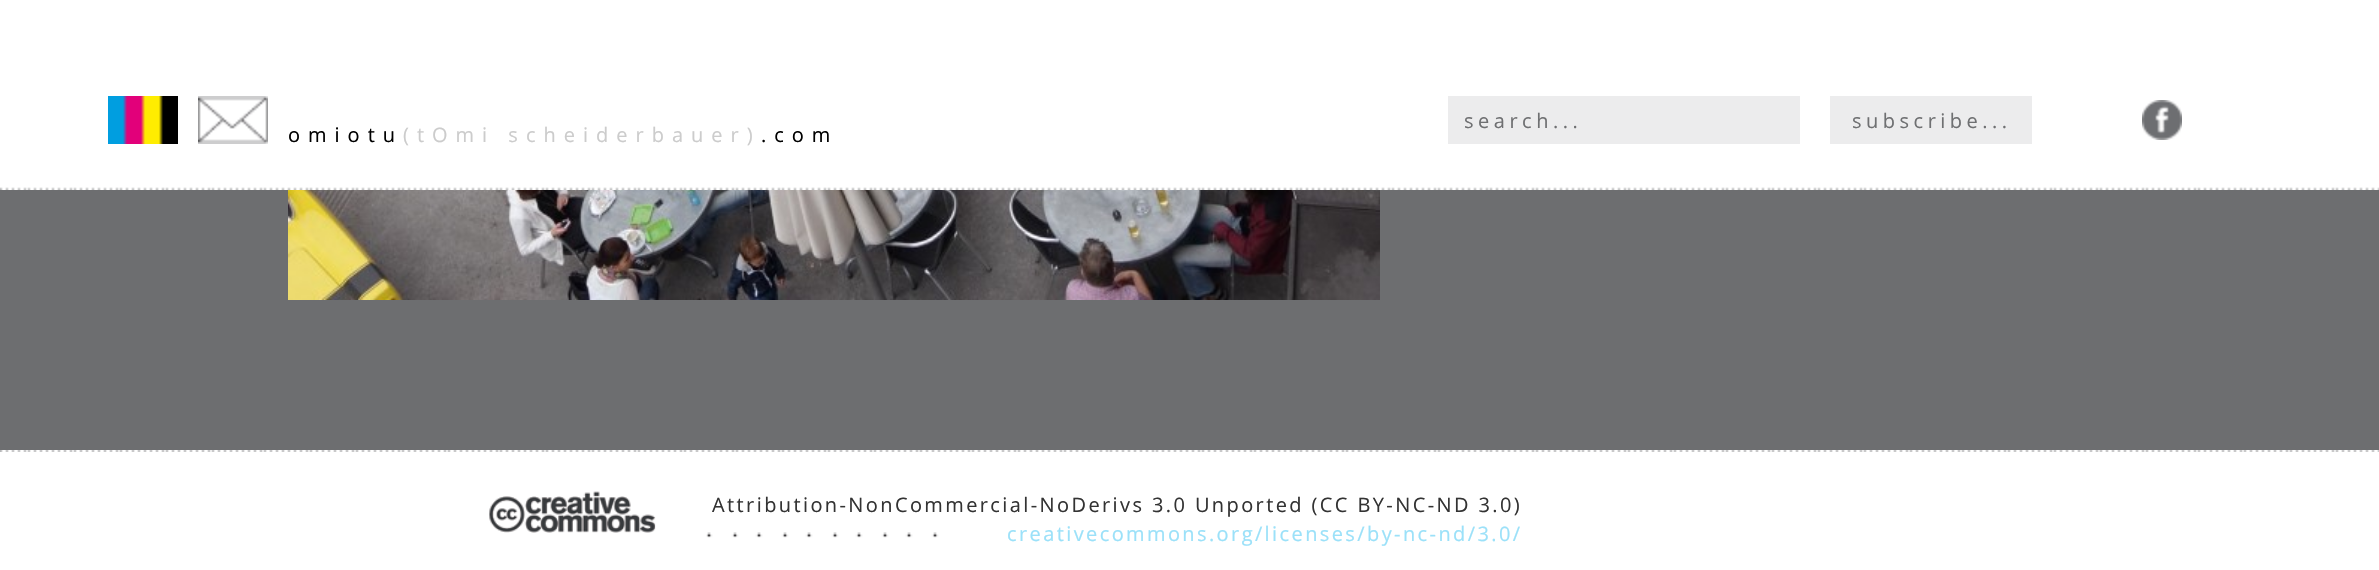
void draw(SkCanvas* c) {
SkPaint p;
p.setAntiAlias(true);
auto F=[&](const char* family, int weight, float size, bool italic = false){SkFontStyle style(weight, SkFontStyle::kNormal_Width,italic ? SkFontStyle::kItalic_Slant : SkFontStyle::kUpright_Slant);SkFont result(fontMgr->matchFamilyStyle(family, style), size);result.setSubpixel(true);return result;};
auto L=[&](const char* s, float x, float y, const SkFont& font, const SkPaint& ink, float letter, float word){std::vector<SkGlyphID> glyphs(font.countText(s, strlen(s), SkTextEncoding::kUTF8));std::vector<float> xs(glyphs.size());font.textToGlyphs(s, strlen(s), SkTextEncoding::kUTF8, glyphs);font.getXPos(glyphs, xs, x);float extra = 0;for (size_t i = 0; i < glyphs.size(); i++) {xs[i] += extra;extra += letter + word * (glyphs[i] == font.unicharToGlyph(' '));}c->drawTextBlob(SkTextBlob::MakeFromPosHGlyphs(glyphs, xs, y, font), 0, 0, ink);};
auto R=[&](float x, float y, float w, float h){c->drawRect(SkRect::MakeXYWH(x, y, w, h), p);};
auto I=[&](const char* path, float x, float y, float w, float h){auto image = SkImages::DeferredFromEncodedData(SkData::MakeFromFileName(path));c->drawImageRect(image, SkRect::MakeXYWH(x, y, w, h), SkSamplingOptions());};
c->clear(0xff6d6e70);
p.setColor(0xffffffff);
R(0,0,2379,190);
I("1.png",0,187,2379,3);
p.setColor(0xffececed);
R(1448,96,352,48);
auto f1 = F("Open Sans",400,20);
p.setColor(0xff6f7072);
L("search...",1464,128,f1,p,4.5,0);
p.setColor(0xffececed);
R(1830,96,202,48);
p.setColor(0xff6f7072);
L("subscribe...",1852,128,f1,p,4.5,0);
I("2.png",2142,100,40,40);
I("3.png",108,96,70,48);
I("4.png",198,96,70,48);
p.setColor(0xff000000);
L("omiotu",288,142,f1,p,8,0);
p.setColor(0xffcccccc);
L("(tOmi scheiderbauer)",403,142,f1,p,8,0);
p.setColor(0xff000000);
L(".com",761,142,f1,p,8,0);
I("5.png",288,190,1092,110);
p.setColor(0xffffffff);
R(0,450,2379,120);
I("6.png",0,450,2379,2);
I("7.png",489,491,167,42);
I("8.png",706,532,233,6);
p.setColor(0xff333333);
L("Attribution-NonCommercial-NoDerivs 3.0 Unported (CC BY-NC-ND 3.0)",712,512,f1,p,2.4,0);
p.setColor(0xff9be1f9);
L("creativecommons.org/licenses/by-nc-nd/3.0/",1007,541,f1,p,2.4,0);
}
